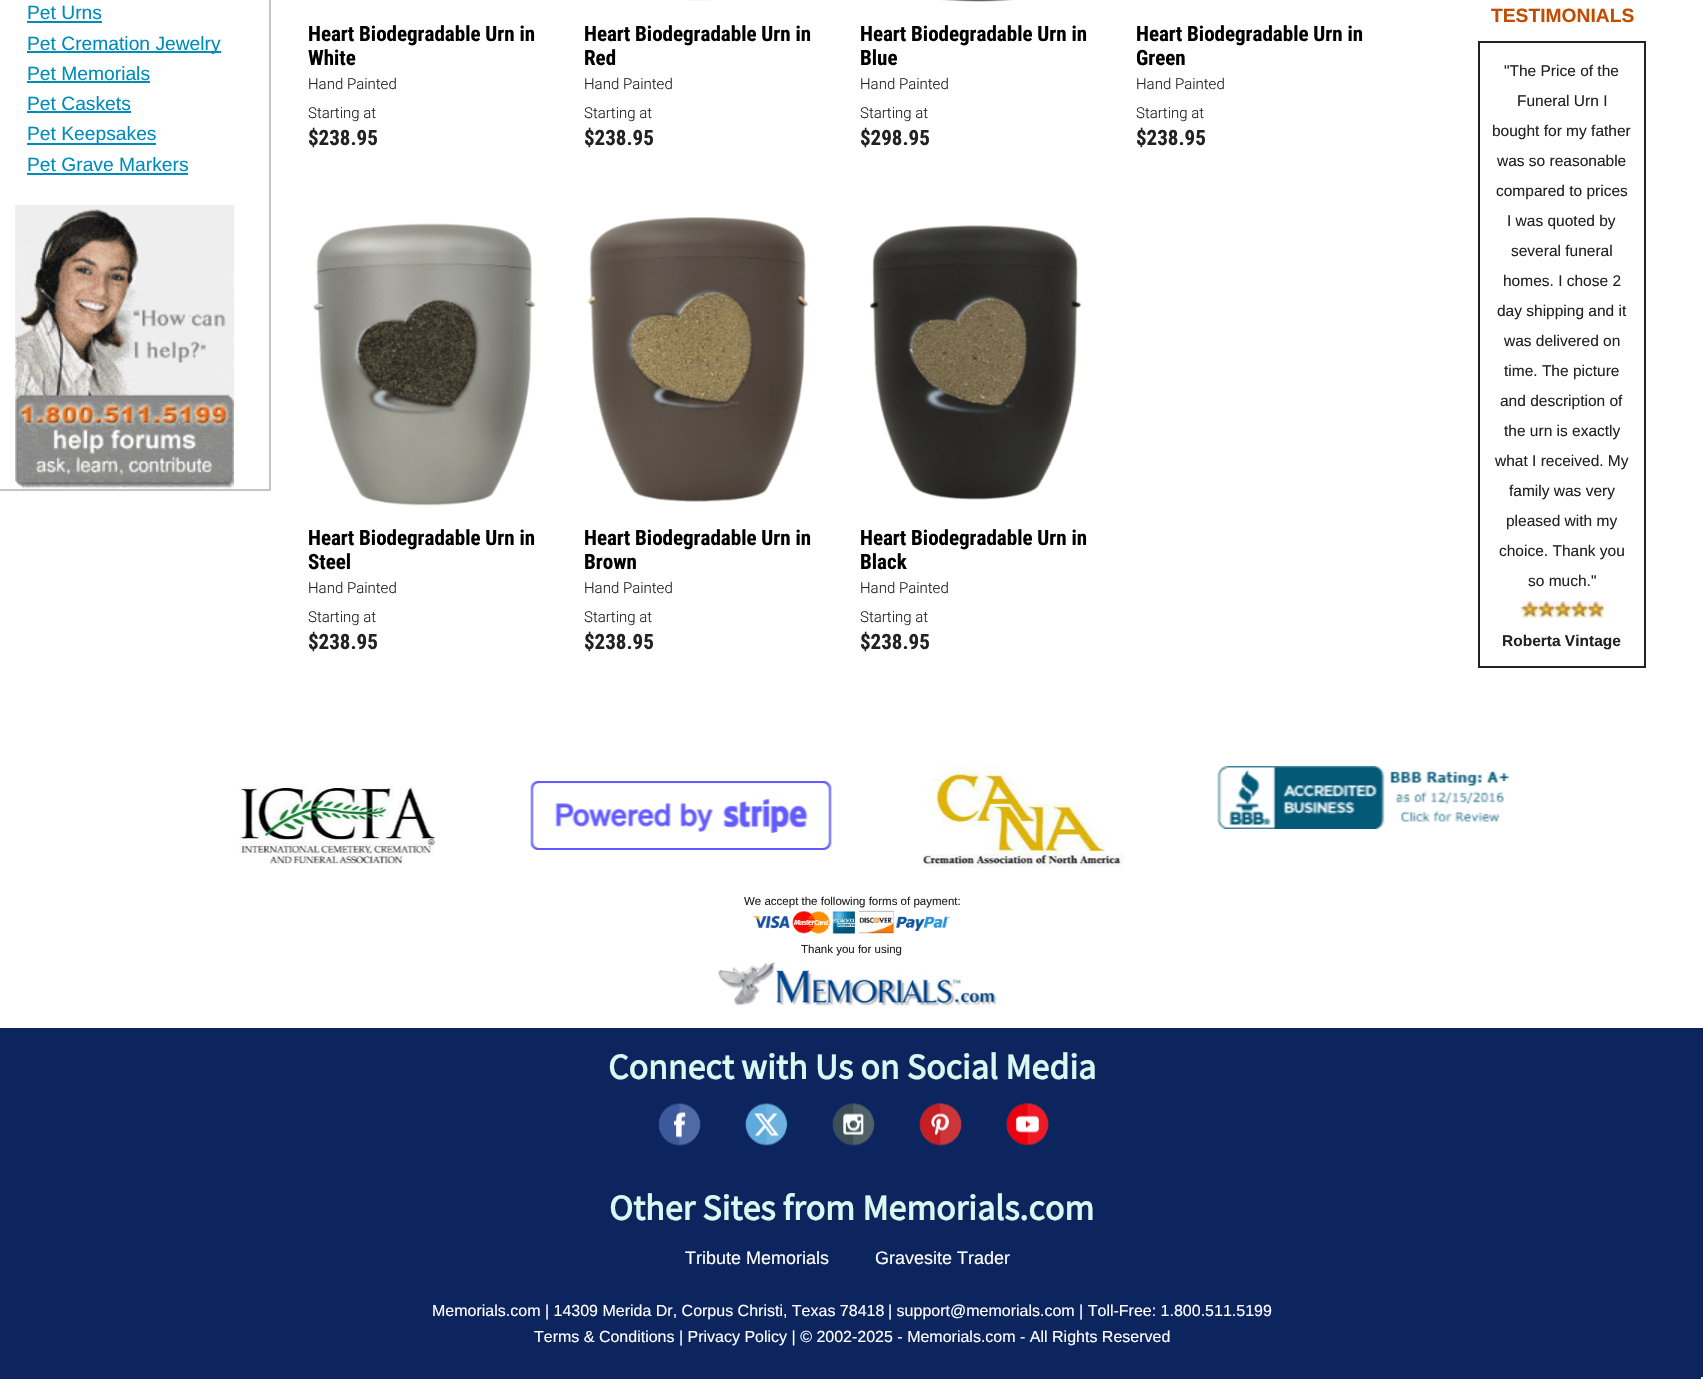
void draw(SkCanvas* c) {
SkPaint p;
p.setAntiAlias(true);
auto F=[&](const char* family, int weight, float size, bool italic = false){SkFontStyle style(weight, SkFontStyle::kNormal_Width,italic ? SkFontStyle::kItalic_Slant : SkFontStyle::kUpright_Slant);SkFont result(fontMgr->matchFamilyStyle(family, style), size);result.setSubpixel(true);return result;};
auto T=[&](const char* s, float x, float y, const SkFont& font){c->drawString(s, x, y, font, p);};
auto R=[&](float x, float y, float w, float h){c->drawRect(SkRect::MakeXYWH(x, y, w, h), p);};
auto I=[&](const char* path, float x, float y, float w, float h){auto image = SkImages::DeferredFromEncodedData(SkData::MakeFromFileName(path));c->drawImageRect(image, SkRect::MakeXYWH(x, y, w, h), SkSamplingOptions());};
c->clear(0xff0c255e);
p.setColor(0xffffffff);
R(0,0,1703,1028);
p.setColor(0xffc4c4c4);
R(269,0,2,491);
R(0,489,270,2);
auto f1 = F("Liberation Sans",400,19.25);
p.setColor(0xff008cba);
T("Pet Urns",27,19,f1);
R(27,21,75,2);
R(27,51,194,2);
T("Pet Cremation Jewelry",27,50,f1);
T("Pet Memorials",27,80,f1);
R(27,81,123,2);
T("Pet Caskets",27,110,f1);
R(27,111,104,2);
R(27,143,129,2);
T("Pet Keepsakes",27,140,f1);
T("Pet Grave Markers",27,171,f1);
R(27,173,161,2);
I("1.png",15,205,219,284);
auto f2 = F("Roboto Condensed",700,21);
p.setColor(0xff000000);
T("Heart Biodegradable Urn in",308,41,f2);
T("White",308,65,f2);
auto f3 = F("Roboto",300,15);
p.setColor(0xff222222);
T("Hand Painted",308,89,f3);
T("Starting at",308,118,f3);
T("$238.95",308,145,f2);
I("2.png",688,0,23,1);
p.setColor(0xff000000);
T("Heart Biodegradable Urn in",584,41,f2);
T("Red",584,65,f2);
p.setColor(0xff222222);
T("Hand Painted",584,89,f3);
T("Starting at",584,118,f3);
T("$238.95",584,145,f2);
I("3.png",942,0,71,2);
p.setColor(0xff000000);
T("Heart Biodegradable Urn in",860,41,f2);
T("Blue",860,65,f2);
p.setColor(0xff222222);
T("Hand Painted",860,89,f3);
T("Starting at",860,118,f3);
T("$298.95",860,145,f2);
p.setColor(0xff000000);
T("Heart Biodegradable Urn in",1136,41,f2);
T("Green",1136,65,f2);
p.setColor(0xff222222);
T("Hand Painted",1136,89,f3);
T("Starting at",1136,118,f3);
T("$238.95",1136,145,f2);
I("4.png",313,223,223,283);
p.setColor(0xff000000);
T("Heart Biodegradable Urn in",308,545,f2);
T("Steel",308,569,f2);
p.setColor(0xff222222);
T("Hand Painted",308,593,f3);
T("Starting at",308,622,f3);
T("$238.95",308,649,f2);
I("5.png",587,217,222,285);
p.setColor(0xff000000);
T("Heart Biodegradable Urn in",584,545,f2);
T("Brown",584,569,f2);
p.setColor(0xff222222);
T("Hand Painted",584,593,f3);
T("Starting at",584,622,f3);
T("$238.95",584,649,f2);
I("6.png",869,225,212,275);
p.setColor(0xff000000);
T("Heart Biodegradable Urn in",860,545,f2);
T("Black",860,569,f2);
p.setColor(0xff222222);
T("Hand Painted",860,593,f3);
T("Starting at",860,622,f3);
T("$238.95",860,649,f2);
auto f4 = F("Liberation Sans",700,19.25);
p.setColor(0xffc14d00);
T("TESTIMONIALS",1491,22,f4);
p.setColor(0xff222222);
R(1478,41,168,2);
R(1644,41,2,627);
R(1478,666,168,2);
R(1478,41,2,627);
auto f5 = F("Liberation Sans",400,15.5);
T("\"The Price of the",1504,76,f5);
T("Funeral Urn I",1517,106,f5);
T("bought for my father",1492,136,f5);
T("was so reasonable",1497,166,f5);
T("compared to prices",1496,196,f5);
T("I was quoted by",1507,226,f5);
T("several funeral",1511,256,f5);
T("homes. I chose 2",1503,286,f5);
T("day shipping and it",1497,316,f5);
T("was delivered on",1504,346,f5);
T("time. The picture",1504,376,f5);
T("and description of",1500,406,f5);
T("the urn is exactly",1504,436,f5);
T("what I received. My",1495,466,f5);
T("family was very",1509,496,f5);
T("pleased with my",1506,526,f5);
T("choice. Thank you",1499,556,f5);
T("so much.\"",1528,586,f5);
I("7.png",1520,601,18,17);
I("8.png",1537,601,17,17);
I("9.png",1553,601,18,17);
I("8.png",1570,601,17,17);
I("10.png",1586,601,18,17);
auto f6 = F("Liberation Sans",700,15.5);
T("Roberta Vintage",1502,646,f6);
I("11.png",239,786,196,78);
I("12.png",530,781,302,69);
I("13.png",922,766,202,101);
I("14.png",1217,766,293,63);
auto f7 = F("Liberation Sans",400,11.5);
T("We accept the following forms of payment:",744,905,f7);
I("15.png",753,910,198,24);
T("Thank you for using",801,953,f7);
I("16.png",718,962,279,44);
auto f8 = F("Source Sans Pro",700,36);
p.setColor(0xffdaf7f2);
T("Connect with Us on Social Media",608,1079,f8);
I("17.png",658,1103,43,43);
I("18.png",745,1103,43,43);
I("19.png",832,1103,43,43);
I("20.png",919,1103,43,43);
I("21.png",1006,1103,43,43);
T("Other Sites from Memorials.com",609,1220,f8);
auto f9 = F("Liberation Sans",400,18);
p.setColor(0xffffffff);
T("Tribute Memorials",685,1264,f9);
T("Gravesite Trader",875,1264,f9);
auto f10 = F("Liberation Sans",400,16);
T("Memorials.com | 14309 Merida Dr, Corpus Christi, Texas 78418",432,1316,f10);
T("| support@memorials.com | Toll-Free: 1.800.511.5199",888,1316,f10);
T("Terms & Conditions | Privacy Policy | © 2002-2025 - Memorials.com - All Rights Reserved",534,1342,f10);
p.setColor(0xfff5f5f5);
R(1701,1377,2,2);
}
